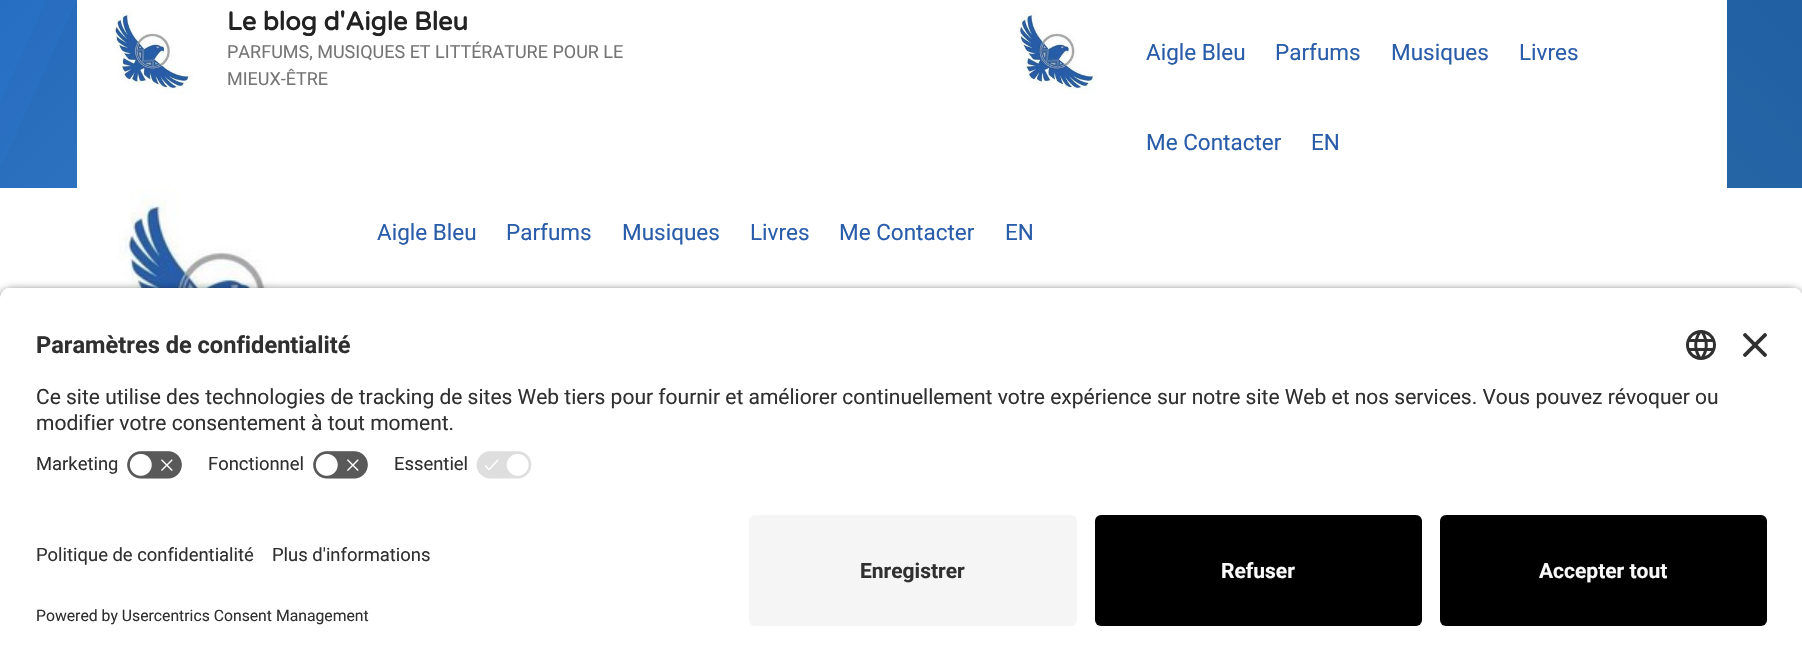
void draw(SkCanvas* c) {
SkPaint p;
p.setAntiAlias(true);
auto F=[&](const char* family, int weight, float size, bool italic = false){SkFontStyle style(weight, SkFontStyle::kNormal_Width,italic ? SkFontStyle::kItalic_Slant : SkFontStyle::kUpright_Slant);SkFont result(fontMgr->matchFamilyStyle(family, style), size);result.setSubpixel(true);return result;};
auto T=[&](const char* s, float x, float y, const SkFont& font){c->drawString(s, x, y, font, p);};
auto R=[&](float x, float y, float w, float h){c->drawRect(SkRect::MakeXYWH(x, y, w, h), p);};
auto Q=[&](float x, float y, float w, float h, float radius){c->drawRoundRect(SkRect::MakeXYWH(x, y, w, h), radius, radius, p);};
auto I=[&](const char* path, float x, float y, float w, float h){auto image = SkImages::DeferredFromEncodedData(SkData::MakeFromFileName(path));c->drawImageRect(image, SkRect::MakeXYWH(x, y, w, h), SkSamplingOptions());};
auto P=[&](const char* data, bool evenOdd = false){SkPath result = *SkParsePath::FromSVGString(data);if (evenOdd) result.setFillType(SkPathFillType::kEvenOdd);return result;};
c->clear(0xffffffff);
I("1.png",0,0,1802,188);
p.setColor(0xffffffff);
R(77,0,1650,188);
I("2.png",111,8,82,86);
auto f1 = F("Varela Round",700,25.5);
p.setColor(0xff222222);
T("Le blog d'Aigle Bleu",227,30,f1);
auto f2 = F("Roboto",400,18);
p.setColor(0xff757575);
T("PARFUMS, MUSIQUES ET LITTÉRATURE POUR LE",227,58,f2);
T("MIEUX-ÊTRE",227,85,f2);
I("3.png",1016,8,81,86);
auto f3 = F("Roboto",400,22.5);
p.setColor(0xff295ca9);
T("Aigle Bleu",1146,60,f3);
T("Parfums",1275,60,f3);
T("Musiques",1391,60,f3);
T("Livres",1519,60,f3);
T("Me Contacter",1146,150,f3);
T("EN",1311,150,f3);
I("4.png",118,188,205,100);
T("Aigle Bleu",377,240,f3);
T("Parfums",506,240,f3);
T("Musiques",622,240,f3);
T("Livres",750,240,f3);
T("Me Contacter",839,240,f3);
T("EN",1005,240,f3);
p.setColor(0xcc000000);
p.setMaskFilter(SkMaskFilter::MakeBlur(kNormal_SkBlurStyle, 5));
c->drawRoundRect(SkRect::MakeXYWH(0,291,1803,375),12,12,p);
p.setMaskFilter(nullptr);
c->save();
c->clipPath(P("M12 287h1779c6.5 0 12 5.5 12 12v204h-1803v-204c0-6.5 5.5-12 12-12z"),true);
p.setColor(0xffffffff);
R(0,288,1802,215);
R(0,288,1802,155);
c->restore();
auto f4 = F("Roboto",700,23.6);
p.setColor(0xff303030);
T("Paramètres de confidentialité",36,353,f4);
I("5.png",1686,330,30,30);
I("6.png",1743,333,24,24);
auto f5 = F("Roboto",400,21);
T("Ce site utilise des technologies de tracking de sites Web tiers pour fournir et améliorer continuellement votre expérience sur notre site Web et nos services. Vous pouvez révoquer ou",36,404,f5);
T("modifier votre consentement à tout moment.",36,430,f5);
auto f6 = F("Roboto",400,18.4);
T("Marketing",36,470,f6);
I("7.png",127,451,55,28);
T("Fonctionnel",208,470,f6);
I("7.png",313,451,55,28);
T("Essentiel",394,470,f6);
I("8.png",476,451,56,28);
p.setColor(0xffffffff);
R(0,503,1802,158);
p.setColor(0xff303030);
T("Politique de confidentialité",36,561,f6);
T("Plus d'informations",272,561,f6);
auto f7 = F("Roboto",400,15.75);
T("Powered by Usercentrics Consent Management",36,621,f7);
p.setColor(0xfff5f5f5);
Q(749,515,328,111,6);
auto f8 = F("Roboto",700,21);
p.setColor(0xff303030);
T("Enregistrer",860,578,f8);
p.setColor(0xff000000);
Q(1095,515,327,111,6);
p.setColor(0xfffafafa);
T("Refuser",1221,578,f8);
p.setColor(0xff000000);
Q(1440,515,327,111,6);
p.setColor(0xfffafafa);
T("Accepter tout",1539,578,f8);
}
